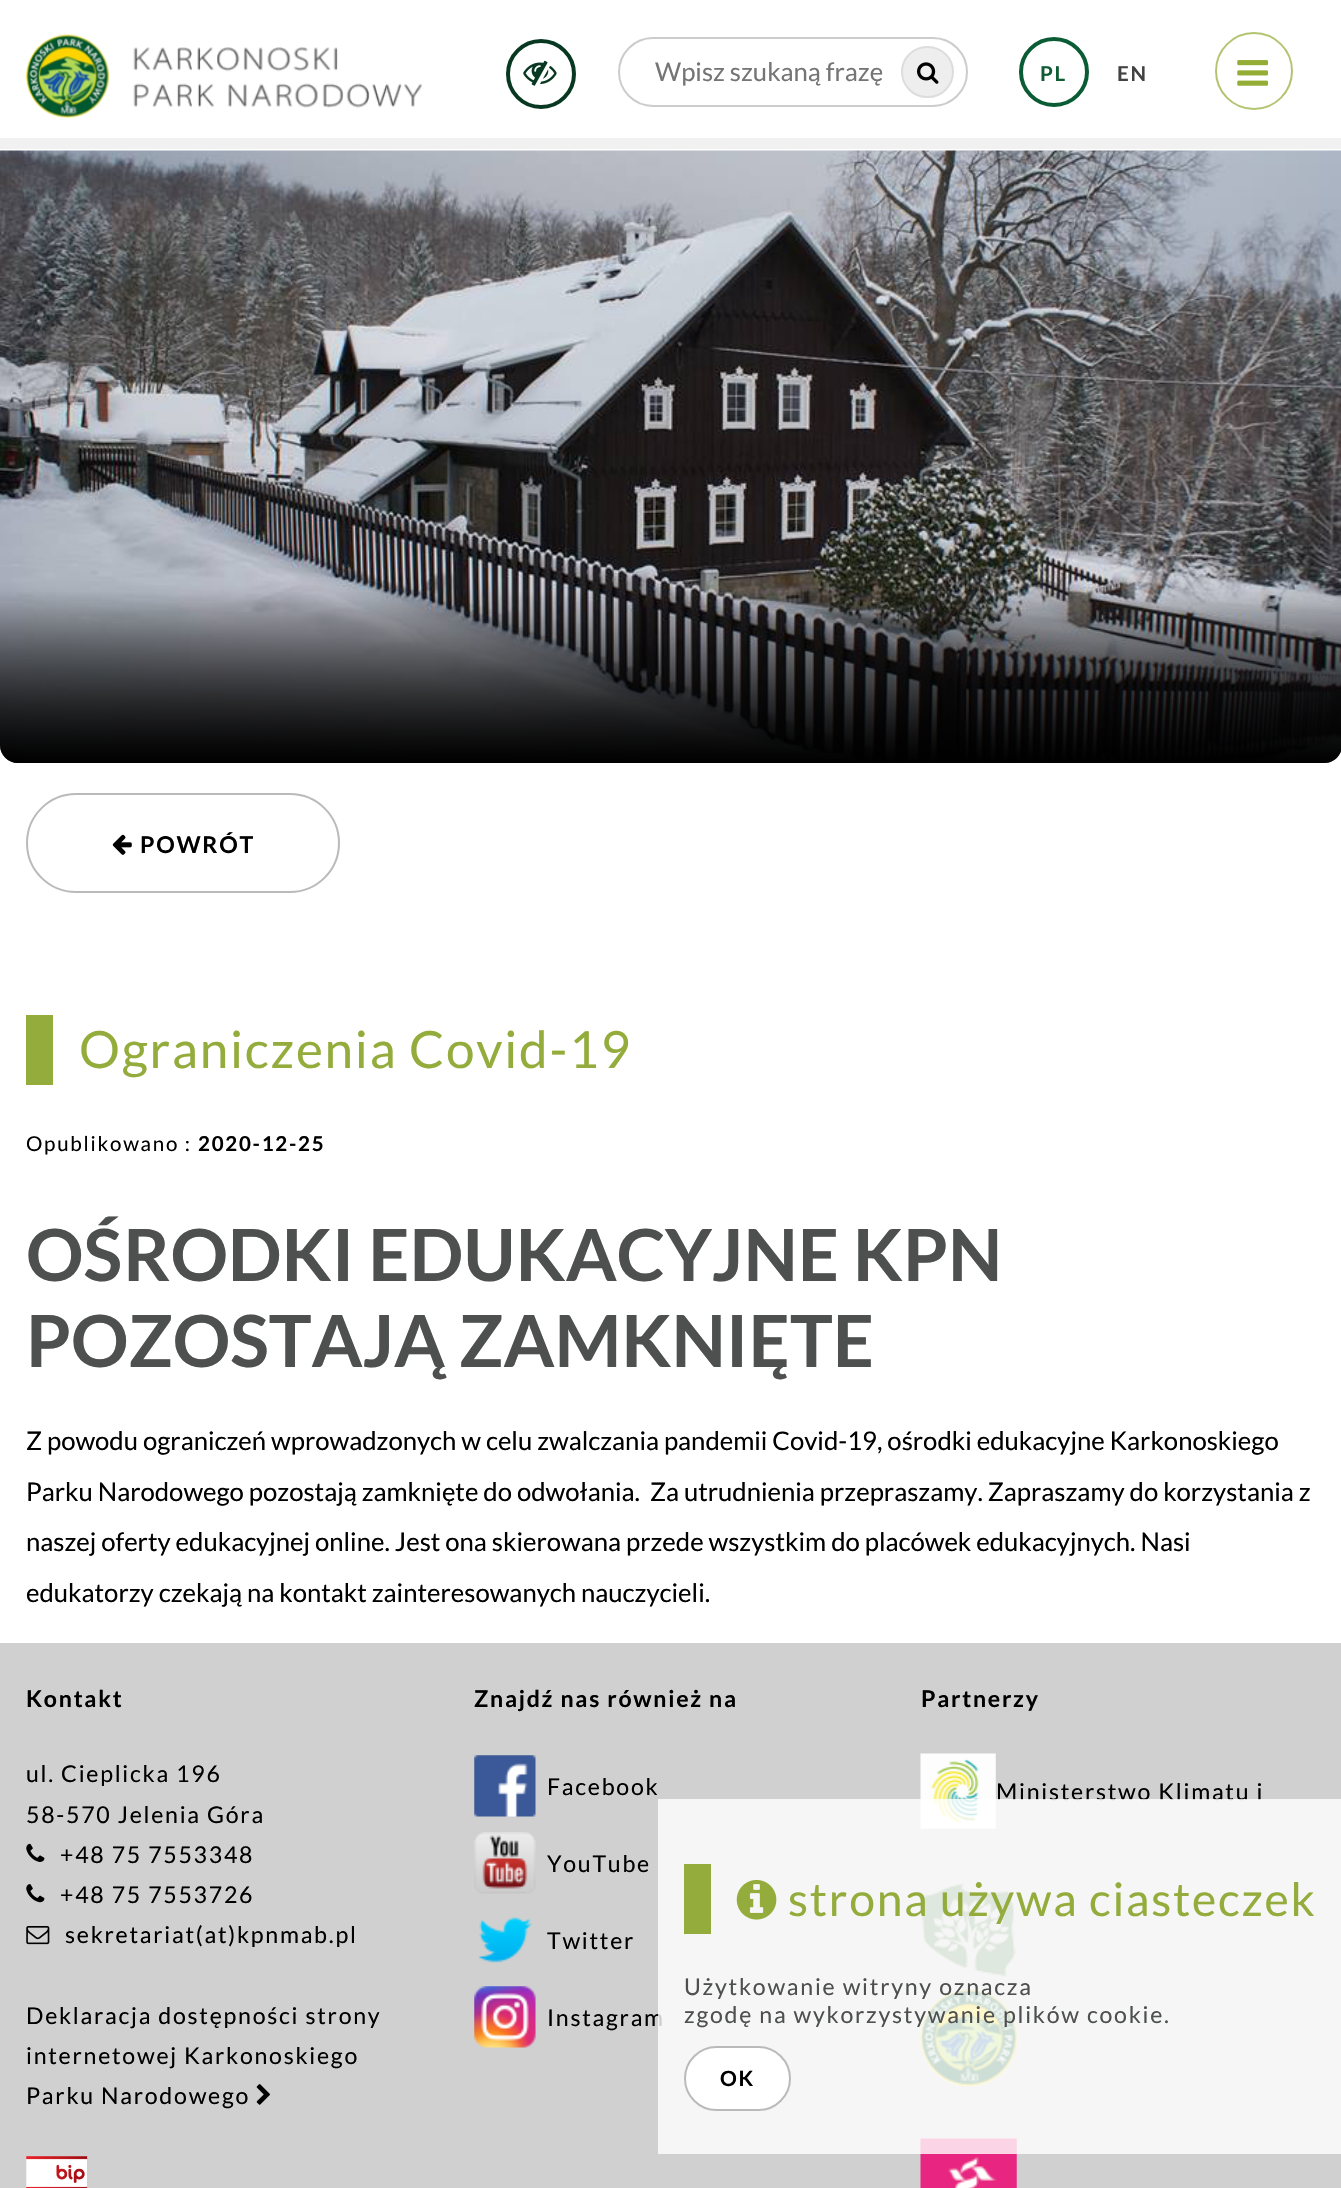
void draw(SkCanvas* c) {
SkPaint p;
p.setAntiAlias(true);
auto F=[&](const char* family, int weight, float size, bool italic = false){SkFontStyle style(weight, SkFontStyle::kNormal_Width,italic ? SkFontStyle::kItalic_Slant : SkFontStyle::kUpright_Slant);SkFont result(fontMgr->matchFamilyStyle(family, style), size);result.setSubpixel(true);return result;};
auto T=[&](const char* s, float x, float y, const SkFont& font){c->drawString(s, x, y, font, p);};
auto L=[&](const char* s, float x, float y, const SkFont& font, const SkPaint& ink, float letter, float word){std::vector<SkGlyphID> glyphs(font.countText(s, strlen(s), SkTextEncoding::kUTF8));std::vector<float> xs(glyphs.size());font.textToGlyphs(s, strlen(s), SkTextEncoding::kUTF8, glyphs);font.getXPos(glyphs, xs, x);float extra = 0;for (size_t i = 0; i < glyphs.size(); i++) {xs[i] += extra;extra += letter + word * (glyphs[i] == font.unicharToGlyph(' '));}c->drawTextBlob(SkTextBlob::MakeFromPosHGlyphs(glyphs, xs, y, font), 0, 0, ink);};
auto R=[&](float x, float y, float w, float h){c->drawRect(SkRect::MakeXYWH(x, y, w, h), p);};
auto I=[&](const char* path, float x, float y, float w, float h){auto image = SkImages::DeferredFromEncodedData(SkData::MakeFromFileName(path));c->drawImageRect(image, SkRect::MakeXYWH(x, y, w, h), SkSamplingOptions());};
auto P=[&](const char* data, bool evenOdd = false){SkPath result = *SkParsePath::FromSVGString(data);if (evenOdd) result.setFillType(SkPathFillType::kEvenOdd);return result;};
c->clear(0xffffffff);
p.setStroke(true);
p.setStrokeWidth(2);
p.setColor(0xffb3c471);
c->drawCircle(1254,71,38,p);
I("1.png",1237,60,32,26);
p.setStroke(false);
p.setColor(0xfff1f1f1);
R(0,138,1341,11);
I("2.png",26,34,396,85);
p.setStroke(true);
p.setStrokeWidth(4);
p.setColor(0xff083821);
c->drawCircle(541,74,33,p);
I("3.png",523,60,34,26);
p.setStrokeWidth(2);
p.setColor(0xffcccccc);
c->drawRoundRect(SkRect::MakeXYWH(619,38,348,68),34,34,p);
auto f1 = F("Lato",400,25.67);
p.setStroke(false);
p.setColor(0xff757575);
T("Wpisz szukaną frazę",655,81,f1);
p.setColor(0xffeeeeee);
c->drawRoundRect(SkRect::MakeXYWH(902,47,51,50),25,25,p);
p.setStroke(true);
p.setColor(0xffdddddd);
c->drawRoundRect(SkRect::MakeXYWH(902,47,51,50),25,25,p);
I("4.png",917,62,22,22);
p.setStrokeWidth(4);
p.setColor(0xff095c33);
c->drawCircle(1054,72,33,p);
auto f2 = F("Lato",700,20.5);
p.setStroke(false);
p.setColor(0xff0f5b33);
L("PL",1040,81,f2,p,1.75,0);
p.setColor(0xff424242);
L("EN",1117,81,f2,p,1.75,0);
I("5.png",0,150,1341,613);
{
const SkColor colors[] = {0x00000000,0x00000000,0xff000000};
const float stops[] = {0,.72,1};
const SkPoint ends[] = {{671,150}, {671,763}};
p.setShader(SkGradientShader::MakeLinear(ends, colors, stops, 3, SkTileMode::kClamp));
p.setAlpha(255);
}
c->drawPath(P("M0 151h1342v594c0 10-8 18-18 18h-1306c-10 0-18-8-18-18z"),p);
{
const SkColor colors[] = {0x00000000,0x94000000};
const float stops[] = {0,1};
const SkPoint ends[] = {{671,579}, {671,763}};
p.setShader(SkGradientShader::MakeLinear(ends, colors, stops, 2, SkTileMode::kClamp));
p.setAlpha(255);
}
c->drawPath(P("M0 579h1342v166c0 10-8 18-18 18h-1306c-10 0-18-8-18-18z"),p);
p.setStroke(true);
p.setStrokeWidth(2);
p.setShader(nullptr);
p.setColor(0xffbababa);
c->drawRoundRect(SkRect::MakeXYWH(27,794,312,98),49,49,p);
I("6.png",112,834,20,21);
auto f3 = F("Lato",700,23.1);
p.setStroke(false);
p.setColor(0xff000000);
L("POWRÓT",140,853,f3,p,1.75,0);
p.setColor(0xff94ac3c);
R(26,1015,27,70);
auto f4 = F("Lato",400,51.25);
L("Ograniczenia Covid-19",79,1068,f4,p,1.75,0);
auto f5 = F("Lato",400,20.5);
p.setColor(0xff000000);
L("Opublikowano :",26,1151,f5,p,1.75,0);
L("2020-12-25",198,1151,f2,p,1.75,0);
auto f6 = F("Lato",700,71.9);
p.setColor(0xff4e4f4f);
T("OŚRODKI EDUKACYJNE KPN",26,1281,f6);
T("POZOSTAJĄ ZAMKNIĘTE",26,1367,f6);
p.setColor(0xff000000);
T("Z powodu ograniczeń wprowadzonych w celu zwalczania pandemii Covid-19, ośrodki edukacyjne Karkonoskiego",26,1450,f1);
T("Parku Narodowego pozostają zamknięte do odwołania.  Za utrudnienia przepraszamy. Zapraszamy do korzystania z",26,1501,f1);
T("naszej oferty edukacyjnej online. Jest ona skierowana przede wszystkim do placówek edukacyjnych. Nasi",26,1551,f1);
T("edukatorzy czekają na kontakt zainteresowanych nauczycieli.",26,1602,f1);
p.setColor(0xffd0d0d0);
R(0,1643,1341,545);
p.setColor(0xff000000);
L("Kontakt",26,1707,f3,p,1.75,0);
auto f7 = F("Lato",400,23.1);
L("ul. Cieplicka 196",26,1782,f7,p,1.75,0);
L("58-570 Jelenia Góra",26,1823,f7,p,1.75,0);
I("7.png",26,1843,19,19);
L("+48 75 7553348",60,1863,f7,p,1.75,0);
I("8.png",26,1884,19,19);
L("+48 75 7553726",60,1903,f7,p,1.75,0);
I("9.png",26,1926,24,19);
L("sekretariat(at)kpnmab.pl",65,1943,f7,p,1.75,0);
L("Deklaracja dostępności strony",26,2024,f7,p,1.75,0);
L("internetowej Karkonoskiego",26,2064,f7,p,1.75,0);
L("Parku Narodowego",26,2104,f7,p,1.75,0);
I("10.png",256,2084,14,21);
I("11.png",26,2156,62,32);
L("Znajdź nas również na",474,1707,f3,p,1.75,0);
I("12.png",474,1755,62,62);
L("Facebook",547,1795,f7,p,1.75,0);
I("13.png",474,1832,62,62);
L("YouTube",547,1872,f7,p,1.75,0);
I("14.png",478,1917,55,46);
L("Twitter",547,1949,f7,p,1.75,0);
I("15.png",474,1986,62,62);
L("Instagram",547,2026,f7,p,1.75,0);
L("Partnerzy",921,1707,f3,p,1.75,0);
I("16.png",920,1753,76,76);
L("Ministerstwo Klimatu i",996,1800,f7,p,1.75,0);
I("17.png",921,1882,95,95);
I("18.png",920,1989,97,97);
I("19.png",920,2138,97,50);
p.setColor(0xccffffff);
R(658,1799,683,355);
p.setColor(0xff94ac3c);
R(684,1864,27,70);
I("20.png",736,1879,41,41);
auto f8 = F("Lato",400,46.25);
L("strona używa ciasteczek",788,1916,f8,p,1.75,0);
p.setColor(0xff4e4f4f);
L("Użytkowanie witryny oznacza",684,1995,f7,p,1.75,0);
L("zgodę na wykorzystywanie plików cookie.",684,2023,f7,p,1.75,0);
p.setColor(0xffffffff);
c->drawRoundRect(SkRect::MakeXYWH(685,2047,105,63),31.5,31.5,p);
p.setStroke(true);
p.setColor(0xffbababa);
c->drawRoundRect(SkRect::MakeXYWH(685,2047,105,63),31.5,31.5,p);
auto f9 = F("Lato",700,21);
p.setStroke(false);
p.setColor(0xff000000);
L("OK",720,2086,f9,p,1.75,0);
}
